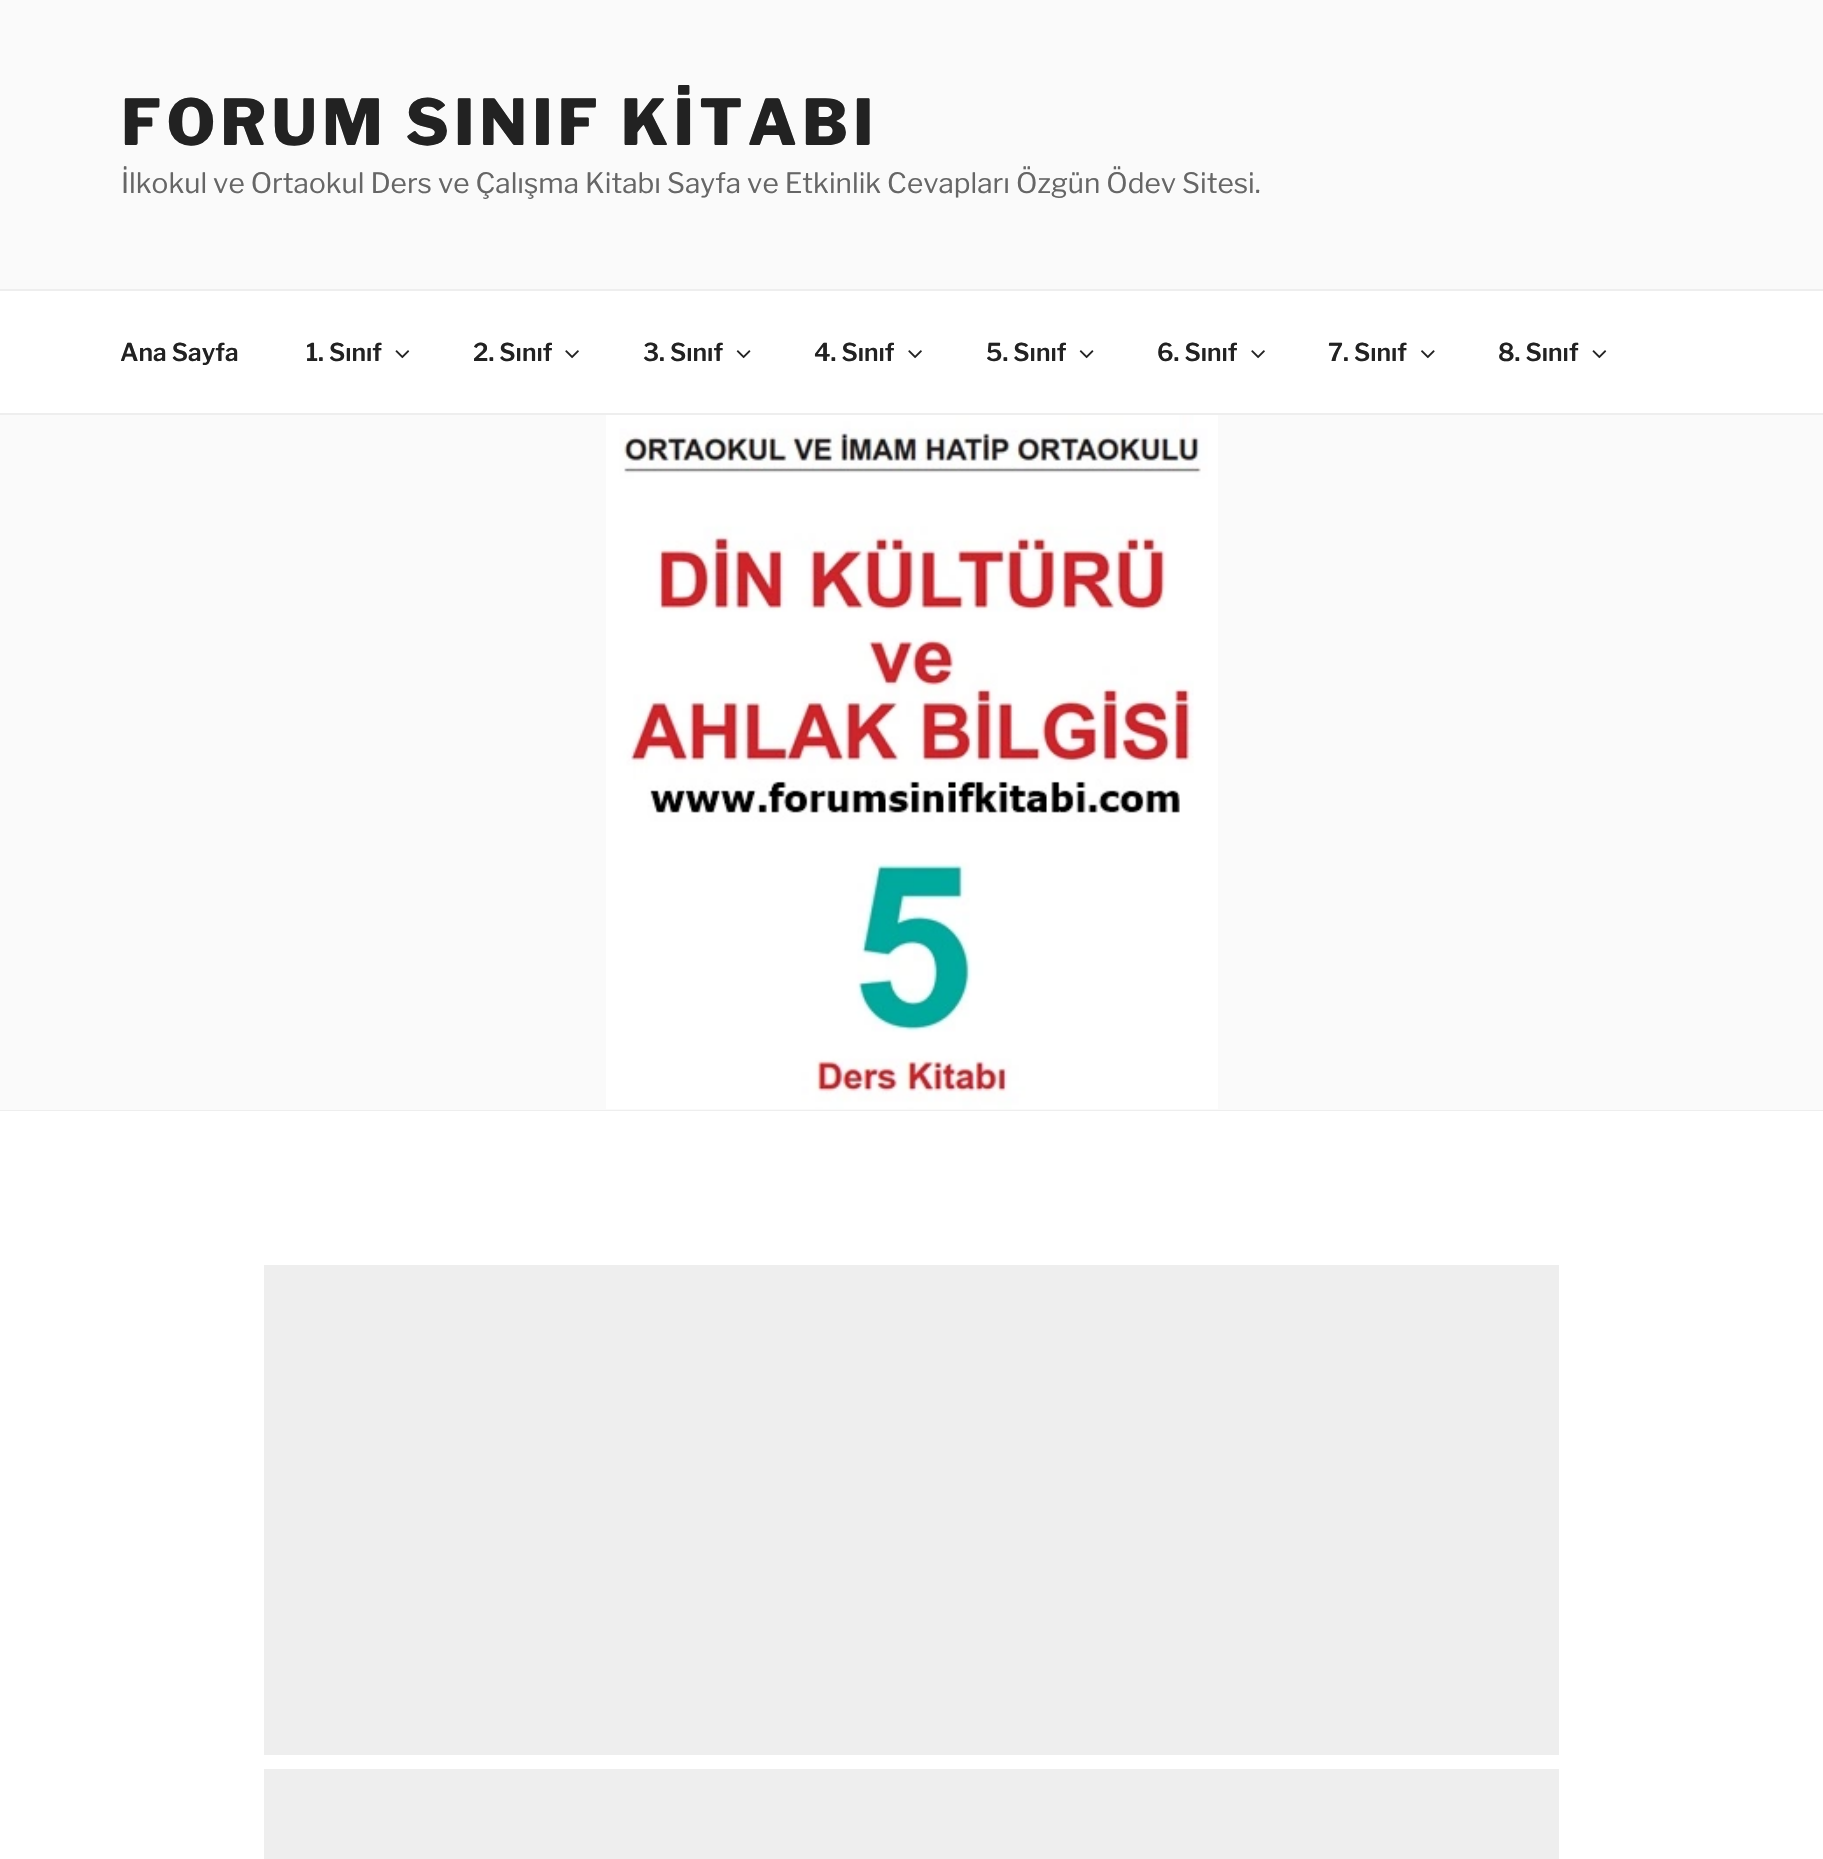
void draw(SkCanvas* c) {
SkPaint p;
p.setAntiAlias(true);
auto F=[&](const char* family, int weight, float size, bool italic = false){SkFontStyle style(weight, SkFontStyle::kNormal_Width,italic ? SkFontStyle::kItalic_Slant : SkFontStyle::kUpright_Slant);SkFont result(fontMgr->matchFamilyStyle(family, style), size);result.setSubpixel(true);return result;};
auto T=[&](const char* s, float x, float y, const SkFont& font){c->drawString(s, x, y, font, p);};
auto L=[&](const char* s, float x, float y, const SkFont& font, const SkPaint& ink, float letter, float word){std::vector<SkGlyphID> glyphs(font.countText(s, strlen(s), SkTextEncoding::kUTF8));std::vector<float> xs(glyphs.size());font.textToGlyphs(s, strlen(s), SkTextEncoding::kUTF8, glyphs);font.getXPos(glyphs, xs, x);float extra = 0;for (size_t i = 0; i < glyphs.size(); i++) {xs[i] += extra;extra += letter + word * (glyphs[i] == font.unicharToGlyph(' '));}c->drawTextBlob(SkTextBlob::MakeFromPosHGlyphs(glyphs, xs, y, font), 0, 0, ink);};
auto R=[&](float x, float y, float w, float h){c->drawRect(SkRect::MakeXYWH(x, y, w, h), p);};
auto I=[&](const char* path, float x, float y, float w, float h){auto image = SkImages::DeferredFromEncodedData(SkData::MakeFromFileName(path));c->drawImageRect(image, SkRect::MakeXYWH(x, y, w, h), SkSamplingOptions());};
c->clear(0xfffafafa);
auto f1 = F("Libre Franklin",100,63);
p.setColor(0xff222222);
L("FORUM SINIF KİTABI",121,145,f1,p,5,0);
auto f2 = F("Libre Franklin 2",100,28);
p.setColor(0xff666666);
T("İlkokul ve Ortaokul Ders ve Çalışma Kitabı Sayfa ve Etkinlik Cevapları Özgün Ödev Sitesi.",121,193,f2);
p.setColor(0xffffffff);
R(0,291,1823,122);
p.setColor(0xffeeeeee);
R(0,289,1823,2);
R(0,413,1823,2);
auto f3 = F("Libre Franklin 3",100,24.5);
p.setColor(0xff222222);
T("Ana Sayfa",120,361,f3);
T("1. Sınıf",306,361,f3);
I("1.png",395,350,15,9);
T("2. Sınıf",473,361,f3);
I("2.png",565,350,14,9);
T("3. Sınıf",643,361,f3);
I("3.png",736,350,15,9);
T("4. Sınıf",814,361,f3);
I("2.png",908,350,14,9);
T("5. Sınıf",986,361,f3);
I("3.png",1079,350,15,9);
T("6. Sınıf",1157,361,f3);
I("2.png",1251,350,14,9);
T("7. Sınıf",1328,361,f3);
I("4.png",1421,350,14,9);
T("8. Sınıf",1498,361,f3);
I("1.png",1592,350,15,9);
p.setColor(0xffeeeeee);
R(0,1110,1823,1);
I("5.png",606,415,612,694);
p.setColor(0xffffffff);
R(0,1111,1823,748);
p.setColor(0xffeeeeee);
R(264,1265,1295,490);
R(264,1769,1295,90);
}
